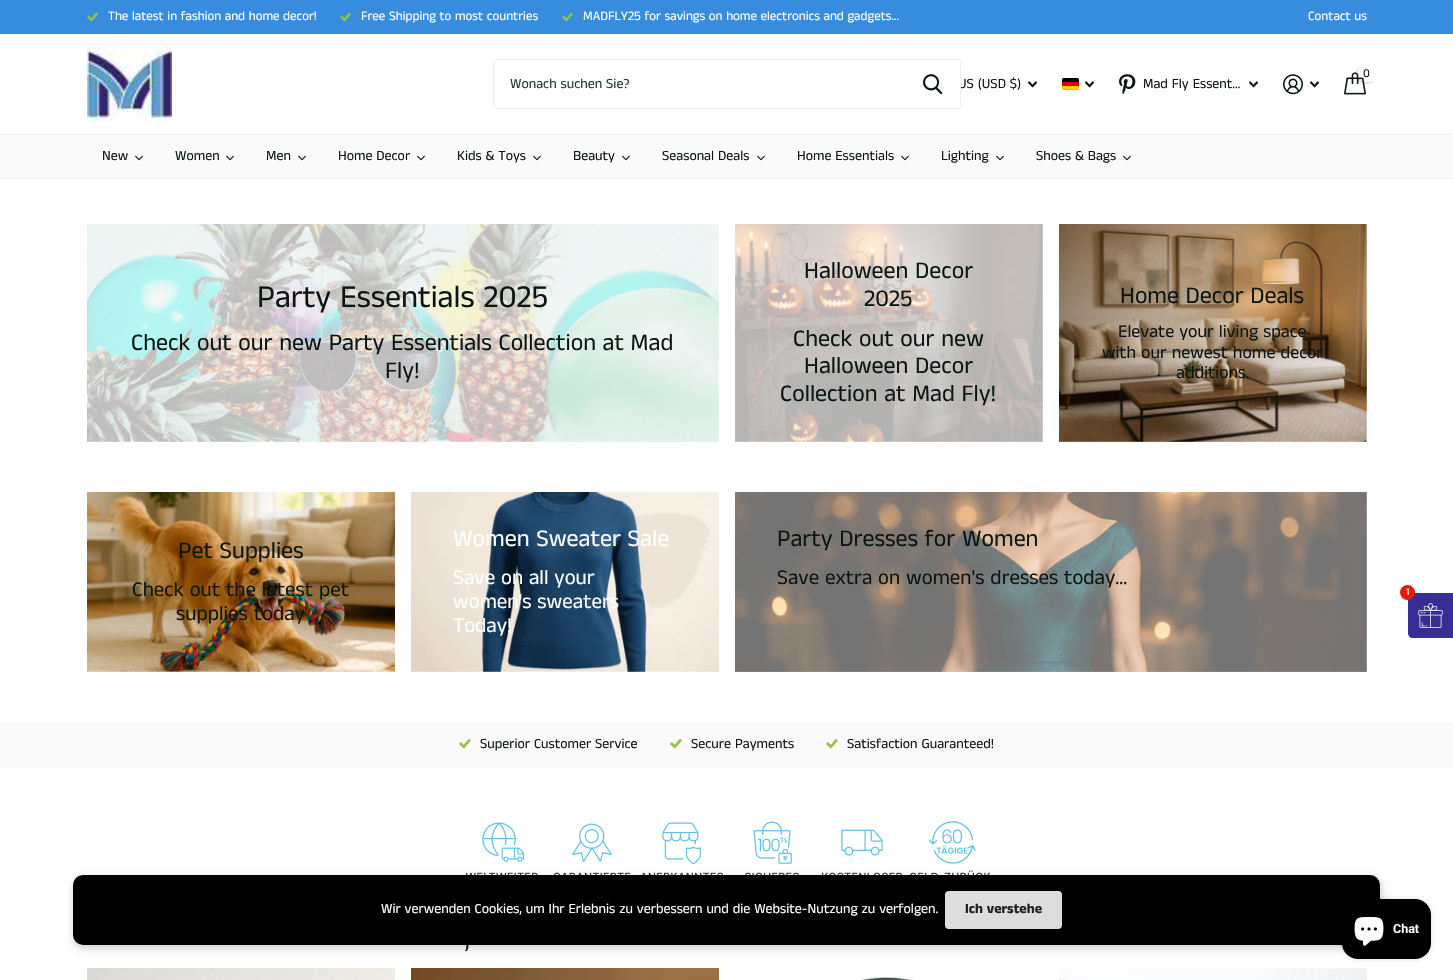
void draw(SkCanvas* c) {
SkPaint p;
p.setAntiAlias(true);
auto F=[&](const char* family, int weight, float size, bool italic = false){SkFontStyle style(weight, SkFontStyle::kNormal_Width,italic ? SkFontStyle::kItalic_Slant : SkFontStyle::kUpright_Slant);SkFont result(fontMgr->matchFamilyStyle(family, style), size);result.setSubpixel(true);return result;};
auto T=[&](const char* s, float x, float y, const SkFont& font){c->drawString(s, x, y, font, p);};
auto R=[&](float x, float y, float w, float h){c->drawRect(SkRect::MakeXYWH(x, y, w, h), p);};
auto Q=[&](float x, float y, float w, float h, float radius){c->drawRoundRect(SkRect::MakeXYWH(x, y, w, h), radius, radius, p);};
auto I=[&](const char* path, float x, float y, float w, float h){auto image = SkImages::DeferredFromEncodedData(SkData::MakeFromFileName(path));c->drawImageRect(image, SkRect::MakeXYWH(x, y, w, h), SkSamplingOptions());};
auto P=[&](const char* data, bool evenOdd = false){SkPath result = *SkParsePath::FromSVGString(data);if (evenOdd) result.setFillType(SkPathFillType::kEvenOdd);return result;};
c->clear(0xffffffff);
p.setColor(0xff378cde);
R(0,0,1453,34);
I("1.png",87,12,11,10);
auto f1 = F("Anek Tamil",400,13);
p.setColor(0xffffffff);
T("The latest in fashion and home decor!",108,20,f1);
I("1.png",340,12,11,10);
T("Free Shipping to most countries",361,20,f1);
I("1.png",562,12,11,10);
T("MADFLY25 for savings on home electronics and gadgets...",583,20,f1);
T("Contact us",1308,20,f1);
I("2.png",87,46,85,76);
auto f2 = F("Anek Tamil",400,14);
p.setColor(0xff0b1613);
T("US (USD $)",958,88,f2);
p.setColor(0xffffffff);
c->drawRoundRect(SkRect::MakeXYWH(493.5,59.5,467,49),3.5,3.5,p);
p.setStroke(true);
p.setStrokeWidth(1);
p.setColor(0xffecedec);
c->drawRoundRect(SkRect::MakeXYWH(493.5,59.5,467,49),3.5,3.5,p);
p.setStroke(false);
p.setColor(0xff1c3830);
T("Wonach suchen Sie?",510,88,f2);
I("3.png",923,74,20,21);
I("4.png",1028,81,9,7);
I("5.png",1062,78,17,12);
I("4.png",1085,81,9,7);
I("6.png",1119,74,17,21);
p.setColor(0xff0b1613);
T("Mad Fly Essent…",1143,88,f2);
I("4.png",1249,81,9,7);
I("7.png",1283,74,20,21);
I("4.png",1310,81,9,7);
I("8.png",1344,72,22,23);
p.setColor(0x1a000000);
c->drawPath(P("M1375 79.5c-1.5 1.5-4 2.5-7 2.5c-9 0-12-10.5-8-16.5c-5 3.5-5.5 11-1 15.5c4.5 4.5 12.5 4 16-1.5z"),p);
auto f3 = F("Anek Tamil",400,12);
p.setColor(0xff0b1613);
T("0",1363,77,f3);
p.setColor(0xfffafafa);
R(0,135,1453,43);
p.setColor(0xffecedec);
R(0,134,1453,1);
p.setColor(0xff0b1613);
T("New",102,160,f2);
I("9.png",135,155,8,6);
T("Women",175,160,f2);
I("9.png",226,155,8,6);
T("Men",266,160,f2);
I("9.png",298,155,8,6);
T("Home Decor",338,160,f2);
I("9.png",417,155,8,6);
T("Kids & Toys",457,160,f2);
I("9.png",533,155,8,6);
T("Beauty",573,160,f2);
I("9.png",622,155,8,6);
T("Seasonal Deals",662,160,f2);
I("9.png",757,155,8,6);
T("Home Essentials",797,160,f2);
I("9.png",901,155,8,6);
T("Lighting",941,160,f2);
I("9.png",996,155,8,6);
T("Shoes & Bags",1036,160,f2);
I("9.png",1123,155,8,6);
p.setColor(0xffecedec);
R(0,178,1453,1);
I("10.png",87,224,632,218);
auto f4 = F("Anek Tamil",400,32);
p.setColor(0xff0b1613);
T("Party Essentials 2025",257,307,f4);
auto f5 = F("Anek Tamil",400,24);
T("Check out our new Party Essentials Collection at Mad",131,350,f5);
T("Fly!",385,378,f5);
I("11.png",735,224,308,218);
T("Halloween Decor",804,278,f5);
T("2025",864,306,f5);
T("Check out our new",793,346,f5);
T("Halloween Decor",804,373,f5);
T("Collection at Mad Fly!",780,401,f5);
I("12.png",1059,224,308,218);
T("Home Decor Deals",1120,303,f5);
auto f6 = F("Anek Tamil",400,18);
T("Elevate your living space",1118,337,f6);
T("with our newest home decor",1102,358,f6);
T("additions.",1176,378,f6);
I("13.png",87,492,308,180);
T("Pet Supplies",178,558,f5);
auto f7 = F("Anek Tamil",400,21);
T("Check out the latest pet",132,596,f7);
T("supplies today",176,620,f7);
I("14.png",411,492,308,180);
p.setColor(0xffffffff);
T("Women Sweater Sale",453,546,f5);
T("Save on all your",453,584,f7);
T("women's sweaters",453,608,f7);
T("Today!",453,632,f7);
I("15.png",735,492,632,180);
p.setColor(0xff0b1613);
T("Party Dresses for Women",777,546,f5);
T("Save extra on women's dresses today...",777,584,f7);
p.setColor(0xfffafafa);
R(0,722,1453,46);
I("16.png",459,738,12,11);
p.setColor(0xff0b1613);
T("Superior Customer Service",480,748,f2);
I("16.png",670,738,12,11);
T("Secure Payments",691,748,f2);
I("16.png",826,738,12,11);
T("Satisfaction Guaranteed!",847,748,f2);
I("17.png",465,822,73,53);
I("18.png",553,823,78,52);
I("19.png",642,822,81,53);
I("20.png",745,821,54,54);
I("21.png",822,829,80,46);
I("22.png",910,821,81,54);
T(",",465,948,f5);
I("23.png",87,968,308,12);
I("24.png",411,968,308,12);
I("25.png",861,975,53,5);
I("26.png",1059,968,308,12);
p.setColor(0xff362e94);
c->drawPath(P("M1413 593h40v45h-40c-3 0-5-2-5-5v-35c0-3 2-5 5-5z"),p);
p.setColor(0xffe51c00);
c->drawCircle(1407.5,592.5,7.5,p);
auto f8 = F("Anek Tamil",400,10);
p.setColor(0xffffffff);
T("1",1406,595,f8);
I("27.png",1418,603,25,25);
p.setColor(0x33000000);
p.setMaskFilter(SkMaskFilter::MakeBlur(kNormal_SkBlurStyle, 4));
c->drawRoundRect(SkRect::MakeXYWH(74,878,1307,70),10,10,p);
p.setMaskFilter(nullptr);
p.setColor(0xff000000);
Q(73,875,1307,70,10);
p.setColor(0xffffffff);
T("Wir verwenden Cookies, um Ihr Erlebnis zu verbessern und die Website-Nutzung zu verfolgen.",381,913,f2);
p.setColor(0xffdddddd);
Q(945,891,117,38,4);
auto f9 = F("Anek Tamil",700,14);
p.setColor(0xff222222);
T("Ich verstehe",965,913,f9);
p.setColor(0x26000000);
p.setMaskFilter(SkMaskFilter::MakeBlur(kNormal_SkBlurStyle, 2.5));
c->drawRoundRect(SkRect::MakeXYWH(1342,899,89,60),16,16,p);
p.setMaskFilter(nullptr);
p.setColor(0xff000000);
Q(1342,899,89,60,16);
I("28.png",1354,917,30,29);
auto f10 = F("Roboto",600,12.5);
p.setColor(0xffffffff);
T("Chat",1393,933,f10);
}
